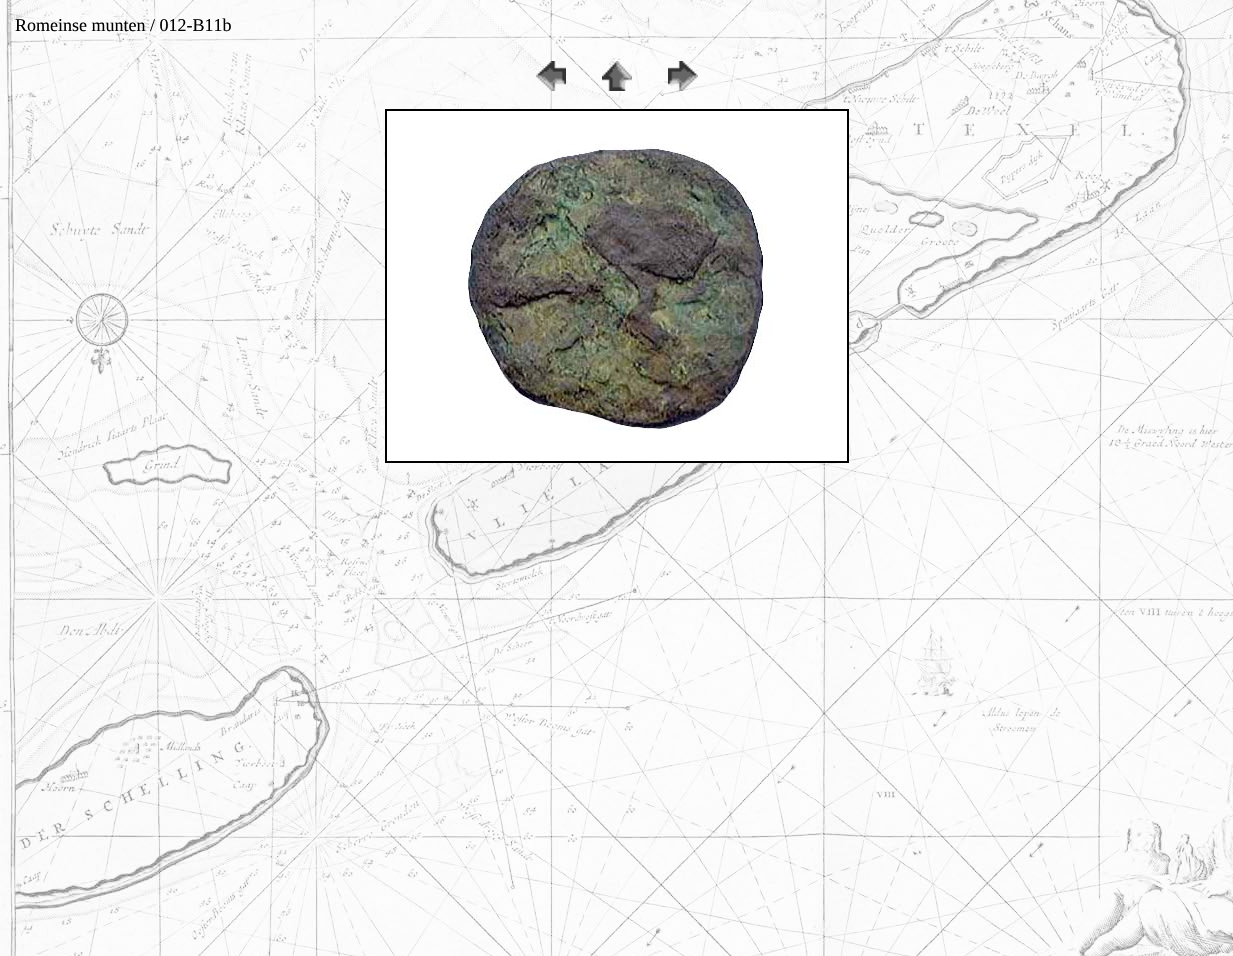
void draw(SkCanvas* c) {
SkPaint p;
p.setAntiAlias(true);
auto F=[&](const char* family, int weight, float size, bool italic = false){SkFontStyle style(weight, SkFontStyle::kNormal_Width,italic ? SkFontStyle::kItalic_Slant : SkFontStyle::kUpright_Slant);SkFont result(fontMgr->matchFamilyStyle(family, style), size);result.setSubpixel(true);return result;};
auto T=[&](const char* s, float x, float y, const SkFont& font){c->drawString(s, x, y, font, p);};
auto I=[&](const char* path, float x, float y, float w, float h){auto image = SkImages::DeferredFromEncodedData(SkData::MakeFromFileName(path));c->drawImageRect(image, SkRect::MakeXYWH(x, y, w, h), SkSamplingOptions());};
c->clear(0xffffffff);
I("1.png",0,0,1233,956);
auto f1 = F("Liberation Serif",400,18);
p.setColor(0xff000000);
T("Romeinse munten / 012-B11b",15,31,f1);
I("2.png",536,61,30,30);
I("3.png",602,61,30,30);
I("4.png",668,61,30,30);
p.setStroke(true);
p.setStrokeWidth(2);
c->drawRect(SkRect::MakeXYWH(386,110,462,352),p);
I("5.png",387,111,460,350);
}
